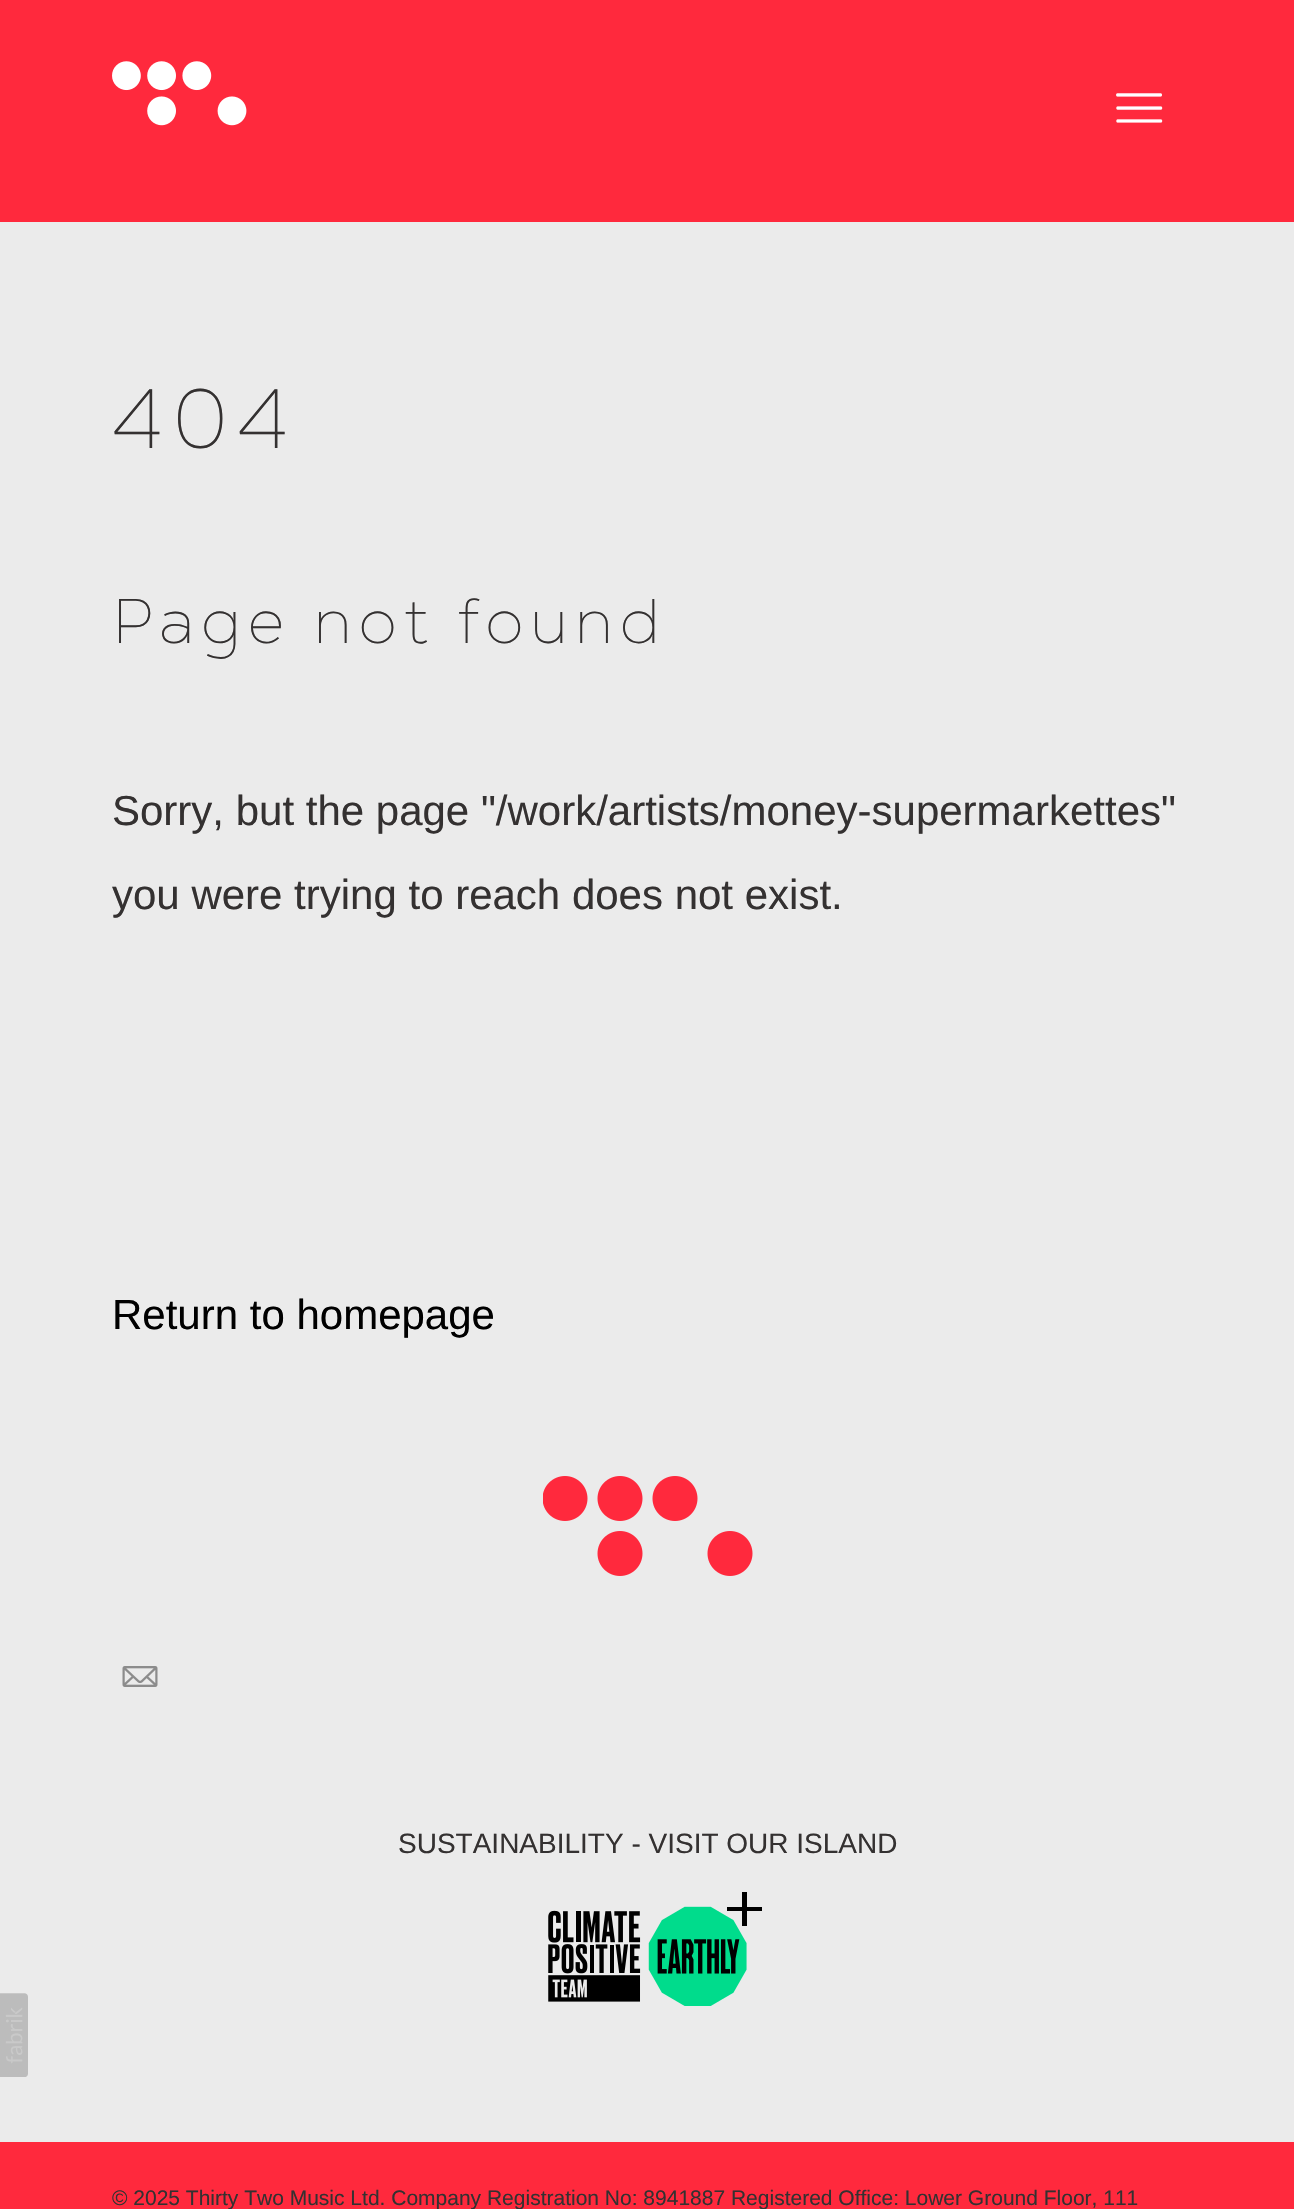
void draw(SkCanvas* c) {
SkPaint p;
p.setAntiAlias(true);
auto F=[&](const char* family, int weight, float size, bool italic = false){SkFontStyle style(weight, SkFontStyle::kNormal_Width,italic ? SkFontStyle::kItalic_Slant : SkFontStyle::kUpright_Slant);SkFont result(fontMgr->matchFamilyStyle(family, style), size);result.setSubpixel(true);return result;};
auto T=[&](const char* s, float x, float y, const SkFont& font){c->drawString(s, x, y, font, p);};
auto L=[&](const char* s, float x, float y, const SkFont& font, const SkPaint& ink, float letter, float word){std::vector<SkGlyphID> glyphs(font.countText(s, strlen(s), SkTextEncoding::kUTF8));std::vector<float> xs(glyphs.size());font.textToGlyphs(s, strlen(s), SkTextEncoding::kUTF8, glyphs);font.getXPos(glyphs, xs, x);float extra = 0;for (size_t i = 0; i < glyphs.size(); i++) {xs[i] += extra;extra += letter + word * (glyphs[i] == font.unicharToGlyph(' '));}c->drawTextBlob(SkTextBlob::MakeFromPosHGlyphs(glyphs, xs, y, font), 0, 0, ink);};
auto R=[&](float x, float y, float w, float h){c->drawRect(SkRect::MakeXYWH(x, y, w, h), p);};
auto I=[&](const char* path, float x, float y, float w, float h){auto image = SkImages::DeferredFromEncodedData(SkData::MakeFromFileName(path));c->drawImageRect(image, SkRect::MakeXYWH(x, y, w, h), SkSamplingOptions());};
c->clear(0xffebebeb);
p.setColor(0xffff293d);
R(0,0,1294,222);
I("1.png",112,61,135,65);
I("2.png",1116,93,47,30);
auto f1 = F("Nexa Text",100,84);
p.setColor(0xff343131);
L("404",112,448,f1,p,8.5,0);
auto f2 = F("Nexa Text",100,63);
L("Page not found",112,643,f2,p,6.25,0);
auto f3 = F("Liberation Sans",400,42);
T("Sorry, but the page \"/work/artists/money-supermarkettes\"",112,825,f3);
T("you were trying to reach does not exist.",112,909,f3);
p.setColor(0xff000000);
T("Return to homepage",112,1329,f3);
I("3.png",0,1993,28,84);
I("4.png",543,1476,210,100);
I("5.png",122,1666,36,21);
auto f4 = F("Liberation Sans",400,28);
p.setColor(0xff343131);
T("SUSTAINABILITY - VISIT OUR ISLAND",398,1853,f4);
I("6.png",548,1892,214,114);
p.setColor(0xffff293d);
R(0,2142,1294,67);
auto f5 = F("Liberation Sans",400,21);
p.setColor(0xff343131);
T("© 2025 Thirty Two Music Ltd. Company Registration No: 8941887 Registered Office: Lower Ground Floor, 111",112,2205,f5);
}
